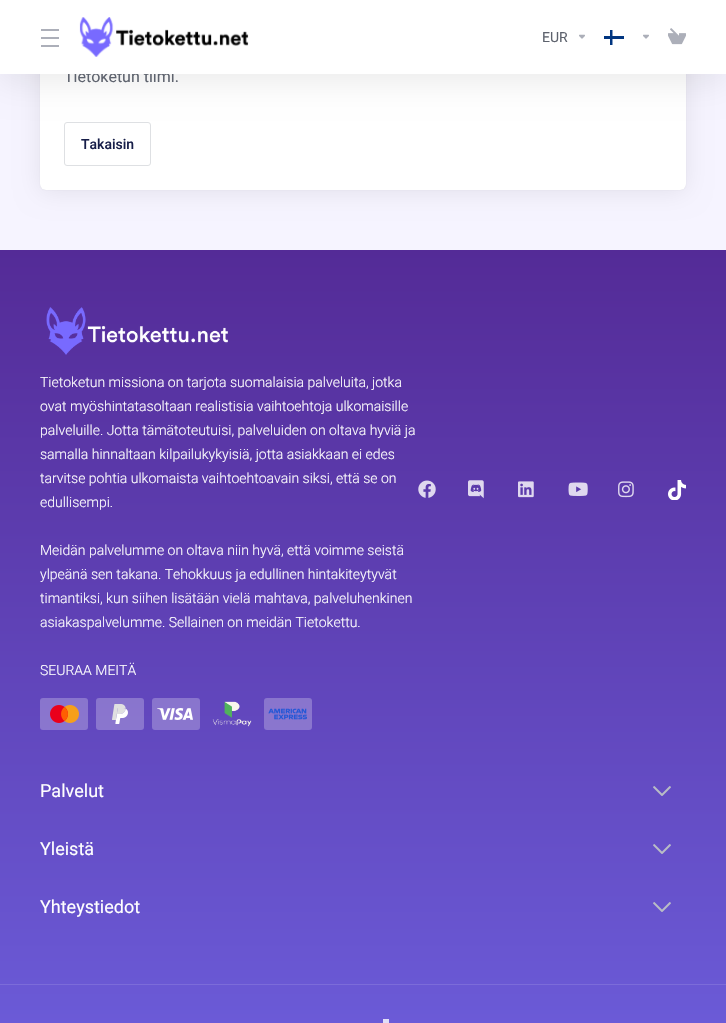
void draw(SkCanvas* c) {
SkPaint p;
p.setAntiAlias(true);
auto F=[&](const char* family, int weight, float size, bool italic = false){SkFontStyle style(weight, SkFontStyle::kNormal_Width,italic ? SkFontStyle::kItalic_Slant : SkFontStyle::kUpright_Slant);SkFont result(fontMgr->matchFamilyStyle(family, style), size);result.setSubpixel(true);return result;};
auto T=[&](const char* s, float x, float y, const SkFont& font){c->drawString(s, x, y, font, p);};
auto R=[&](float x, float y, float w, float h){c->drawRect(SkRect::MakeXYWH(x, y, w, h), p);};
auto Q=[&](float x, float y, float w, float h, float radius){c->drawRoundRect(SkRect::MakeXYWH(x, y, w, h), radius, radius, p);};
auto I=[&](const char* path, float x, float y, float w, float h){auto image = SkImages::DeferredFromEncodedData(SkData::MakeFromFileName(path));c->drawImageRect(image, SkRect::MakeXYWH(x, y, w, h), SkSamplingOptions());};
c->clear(0xfff6f4ff);
p.setColor(0x14000000);
p.setMaskFilter(SkMaskFilter::MakeBlur(kNormal_SkBlurStyle, 12));
c->drawRoundRect(SkRect::MakeXYWH(40,-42,646,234),6,6,p);
p.setMaskFilter(nullptr);
p.setColor(0x1a000000);
p.setMaskFilter(SkMaskFilter::MakeBlur(kNormal_SkBlurStyle, .5));
c->drawRoundRect(SkRect::MakeXYWH(40,-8,646,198),6,6,p);
p.setMaskFilter(nullptr);
p.setColor(0xffffffff);
Q(40,-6,646,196,6);
p.setStroke(true);
p.setStrokeWidth(1);
p.setColor(0xffdee0e3);
c->drawRoundRect(SkRect::MakeXYWH(64.5,122.5,86,43),2.5,2.5,p);
p.setStroke(false);
p.setColor(0x14000000);
p.setMaskFilter(SkMaskFilter::MakeBlur(kNormal_SkBlurStyle, 16));
c->drawRect(SkRect::MakeXYWH(0,8,726,74),p);
p.setMaskFilter(nullptr);
auto f1 = F("Roboto",400,16);
p.setColor(0xff5e636e);
T("Tietoketun tiimi.",64,82,f1);
p.setColor(0xffffffff);
R(0,0,726,74);
p.setColor(0xffacafb9);
R(41,29,18,2);
R(41,37,18,2);
R(41,45,18,2);
I("1.png",79,17,170,40);
auto f2 = F("Roboto",400,14);
p.setColor(0xff5e636e);
T("EUR",542,42,f2);
I("2.png",579,34,6,5);
I("3.png",604,30,20,15);
I("2.png",643,34,6,5);
I("4.png",668,28,18,17);
auto f3 = F("Roboto",500,14);
p.setColor(0xff171e49);
T("Takaisin",81,149,f3);
{
const SkColor colors[] = {0xff6e61e0,0xff542b97};
const float stops[] = {0,1};
const SkPoint ends[] = {{363,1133}, {363,250}};
p.setShader(SkGradientShader::MakeLinear(ends, colors, stops, 2, SkTileMode::kClamp));
p.setAlpha(255);
}
R(0,250,726,773);
I("5.png",46,307,182,48);
auto f4 = F("Roboto",300,14);
p.setShader(nullptr);
p.setColor(0xffffffff);
T("Tietoketun missiona on tarjota suomalaisia palveluita, jotka",40,387,f4);
T("ovat myöshintatasoltaan realistisia vaihtoehtoja ulkomaisille",40,411,f4);
T("palveluille. Jotta tämätoteutuisi, palveluiden on oltava hyviä ja",40,435,f4);
T("samalla hinnaltaan kilpailukykyisiä, jotta asiakkaan ei edes",40,459,f4);
T("tarvitse pohtia ulkomaista vaihtoehtoavain siksi, että se on",40,483,f4);
T("edullisempi.",40,507,f4);
T("Meidän palvelumme on oltava niin hyvä, että voimme seistä",40,555,f4);
T("ylpeänä sen takana. Tehokkuus ja edullinen hintakiteytyvät",40,579,f4);
T("timantiksi, kun siihen lisätään vielä mahtava, palveluhenkinen",40,603,f4);
T("asiakaspalvelumme. Sellainen on meidän Tietokettu.",40,627,f4);
T("SEURAA MEITÄ",40,675,f4);
I("6.png",418,480,18,18);
I("7.png",468,480,16,19);
I("8.png",518,481,16,17);
I("9.png",568,482,20,14);
I("10.png",618,481,16,17);
I("11.png",668,480,18,20);
p.setColor(0x40ffffff);
Q(40,698,48,32,3);
I("12.png",50,705,29,18);
Q(96,698,48,32,3);
I("13.png",112,704,16,20);
Q(152,698,48,32,3);
I("14.png",157,708,36,12);
I("15.png",212,701,40,26);
Q(264,698,48,32,3);
I("16.png",268,708,39,12);
auto f5 = F("Roboto",400,18);
p.setColor(0xffffffff);
T("Palvelut",40,797,f5);
I("17.png",653,786,18,10);
T("Yleistä",40,855,f5);
I("18.png",653,844,18,10);
T("Yhteystiedot",40,913,f5);
I("19.png",653,902,18,10);
p.setColor(0xff7c6cd9);
R(0,984,726,1);
p.setColor(0xffe1def7);
R(383,1019,6,4);
}
